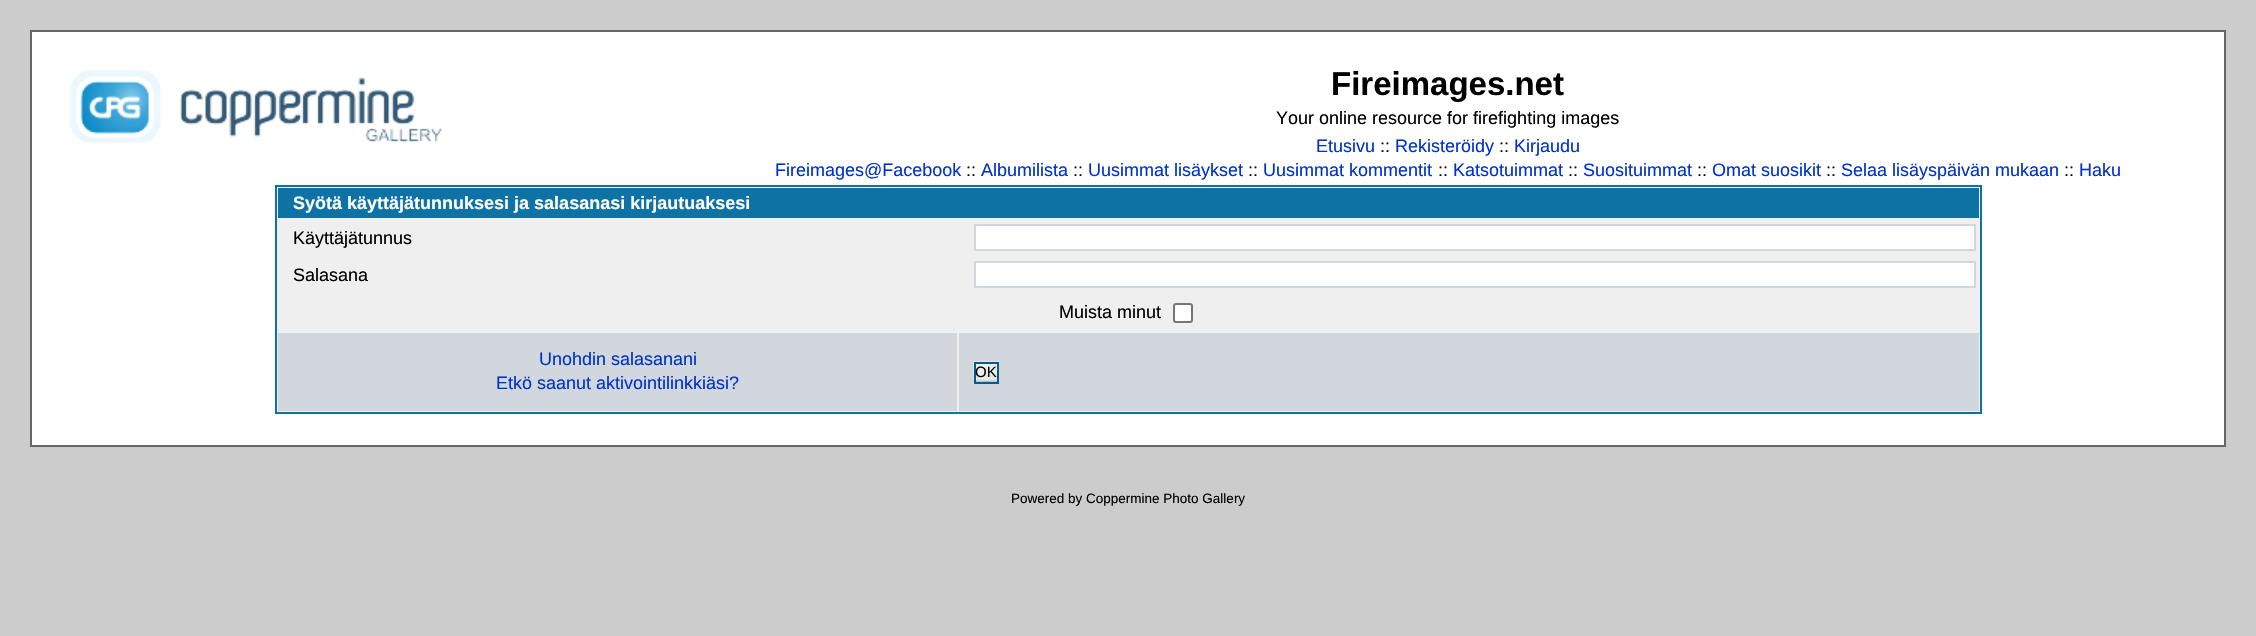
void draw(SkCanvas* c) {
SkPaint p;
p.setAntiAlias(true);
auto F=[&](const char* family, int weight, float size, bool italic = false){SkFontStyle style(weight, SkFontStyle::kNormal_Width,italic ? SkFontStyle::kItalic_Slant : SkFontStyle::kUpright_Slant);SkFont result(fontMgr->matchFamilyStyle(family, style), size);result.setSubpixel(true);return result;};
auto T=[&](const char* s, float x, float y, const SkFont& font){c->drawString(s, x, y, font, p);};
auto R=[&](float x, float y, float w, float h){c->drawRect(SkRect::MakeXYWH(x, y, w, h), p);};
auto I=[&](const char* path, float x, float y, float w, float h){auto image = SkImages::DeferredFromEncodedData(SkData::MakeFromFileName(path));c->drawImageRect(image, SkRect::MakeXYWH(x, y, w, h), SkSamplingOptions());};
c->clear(0xffcccccc);
p.setColor(0xffffffff);
c->drawRect(SkRect::MakeXYWH(31,31,2194,415),p);
p.setStroke(true);
p.setStrokeWidth(2);
p.setColor(0xff666666);
c->drawRect(SkRect::MakeXYWH(31,31,2194,415),p);
I("1.png",69,69,373,75);
auto f1 = F("Liberation Sans",700,33);
p.setStroke(false);
p.setColor(0xff000000);
T("Fireimages.net",1331,95,f1);
auto f2 = F("Liberation Sans",400,18);
T("Your online resource for firefighting images",1276,124,f2);
p.setColor(0xff0033cc);
T("Etusivu",1316,152,f2);
p.setColor(0xff000000);
T("::",1380,152,f2);
p.setColor(0xff0033cc);
T("Rekisteröidy",1395,152,f2);
p.setColor(0xff000000);
T("::",1499,152,f2);
p.setColor(0xff0033cc);
T("Kirjaudu",1514,152,f2);
T("Fireimages@Facebook",775,176,f2);
p.setColor(0xff000000);
T("::",966,176,f2);
p.setColor(0xff0033cc);
T("Albumilista",981,176,f2);
p.setColor(0xff000000);
T("::",1073,176,f2);
p.setColor(0xff0033cc);
T("Uusimmat lisäykset",1088,176,f2);
p.setColor(0xff000000);
T("::",1248,176,f2);
p.setColor(0xff0033cc);
T("Uusimmat kommentit",1263,176,f2);
p.setColor(0xff000000);
T("::",1438,176,f2);
p.setColor(0xff0033cc);
T("Katsotuimmat",1453,176,f2);
p.setColor(0xff000000);
T("::",1568,176,f2);
p.setColor(0xff0033cc);
T("Suosituimmat",1583,176,f2);
p.setColor(0xff000000);
T("::",1697,176,f2);
p.setColor(0xff0033cc);
T("Omat suosikit",1712,176,f2);
p.setColor(0xff000000);
T("::",1826,176,f2);
p.setColor(0xff0033cc);
T("Selaa lisäyspäivän mukaan",1841,176,f2);
p.setColor(0xff000000);
T("::",2064,176,f2);
p.setColor(0xff0033cc);
T("Haku",2079,176,f2);
p.setColor(0xffefefef);
c->drawRect(SkRect::MakeXYWH(276,186,1705,227),p);
p.setStroke(true);
p.setColor(0xff0e72a4);
c->drawRect(SkRect::MakeXYWH(276,186,1705,227),p);
p.setStroke(false);
R(278,188,1701,30);
auto f3 = F("Liberation Sans",700,18);
p.setColor(0xffffffff);
T("Syötä käyttäjätunnuksesi ja salasanasi kirjautuaksesi",293,209,f3);
p.setColor(0xff000000);
T("Käyttäjätunnus",293,244,f2);
p.setColor(0xffffffff);
c->drawRect(SkRect::MakeXYWH(975,225,1000,25),p);
p.setStroke(true);
p.setColor(0xffd1d7dc);
c->drawRect(SkRect::MakeXYWH(975,225,1000,25),p);
p.setStroke(false);
p.setColor(0xff000000);
T("Salasana",293,281,f2);
p.setColor(0xffffffff);
c->drawRect(SkRect::MakeXYWH(975,262,1000,25),p);
p.setStroke(true);
p.setColor(0xffd1d7dc);
c->drawRect(SkRect::MakeXYWH(975,262,1000,25),p);
p.setStroke(false);
p.setColor(0xff000000);
T("Muista minut",1059,318,f2);
p.setColor(0xffffffff);
c->drawRoundRect(SkRect::MakeXYWH(1174,304,18,18),2,2,p);
p.setStroke(true);
p.setColor(0xff767676);
c->drawRoundRect(SkRect::MakeXYWH(1174,304,18,18),2,2,p);
p.setStroke(false);
p.setColor(0xffd1d7dc);
R(278,333,679,78);
p.setColor(0xff0033cc);
T("Unohdin salasanani",539,365,f2);
T("Etkö saanut aktivointilinkkiäsi?",496,389,f2);
p.setColor(0xffd1d7dc);
R(959,333,1020,78);
I("2.png",973,361,26,23);
p.setStroke(true);
p.setColor(0xff005d8c);
c->drawRect(SkRect::MakeXYWH(975,363,23,20),p);
auto f4 = F("Liberation Sans",400,15);
p.setStroke(false);
p.setColor(0xff000000);
T("OK",975,377,f4);
auto f5 = F("Liberation Sans",400,13.5);
T("Powered by Coppermine Photo Gallery",1011,503,f5);
}
